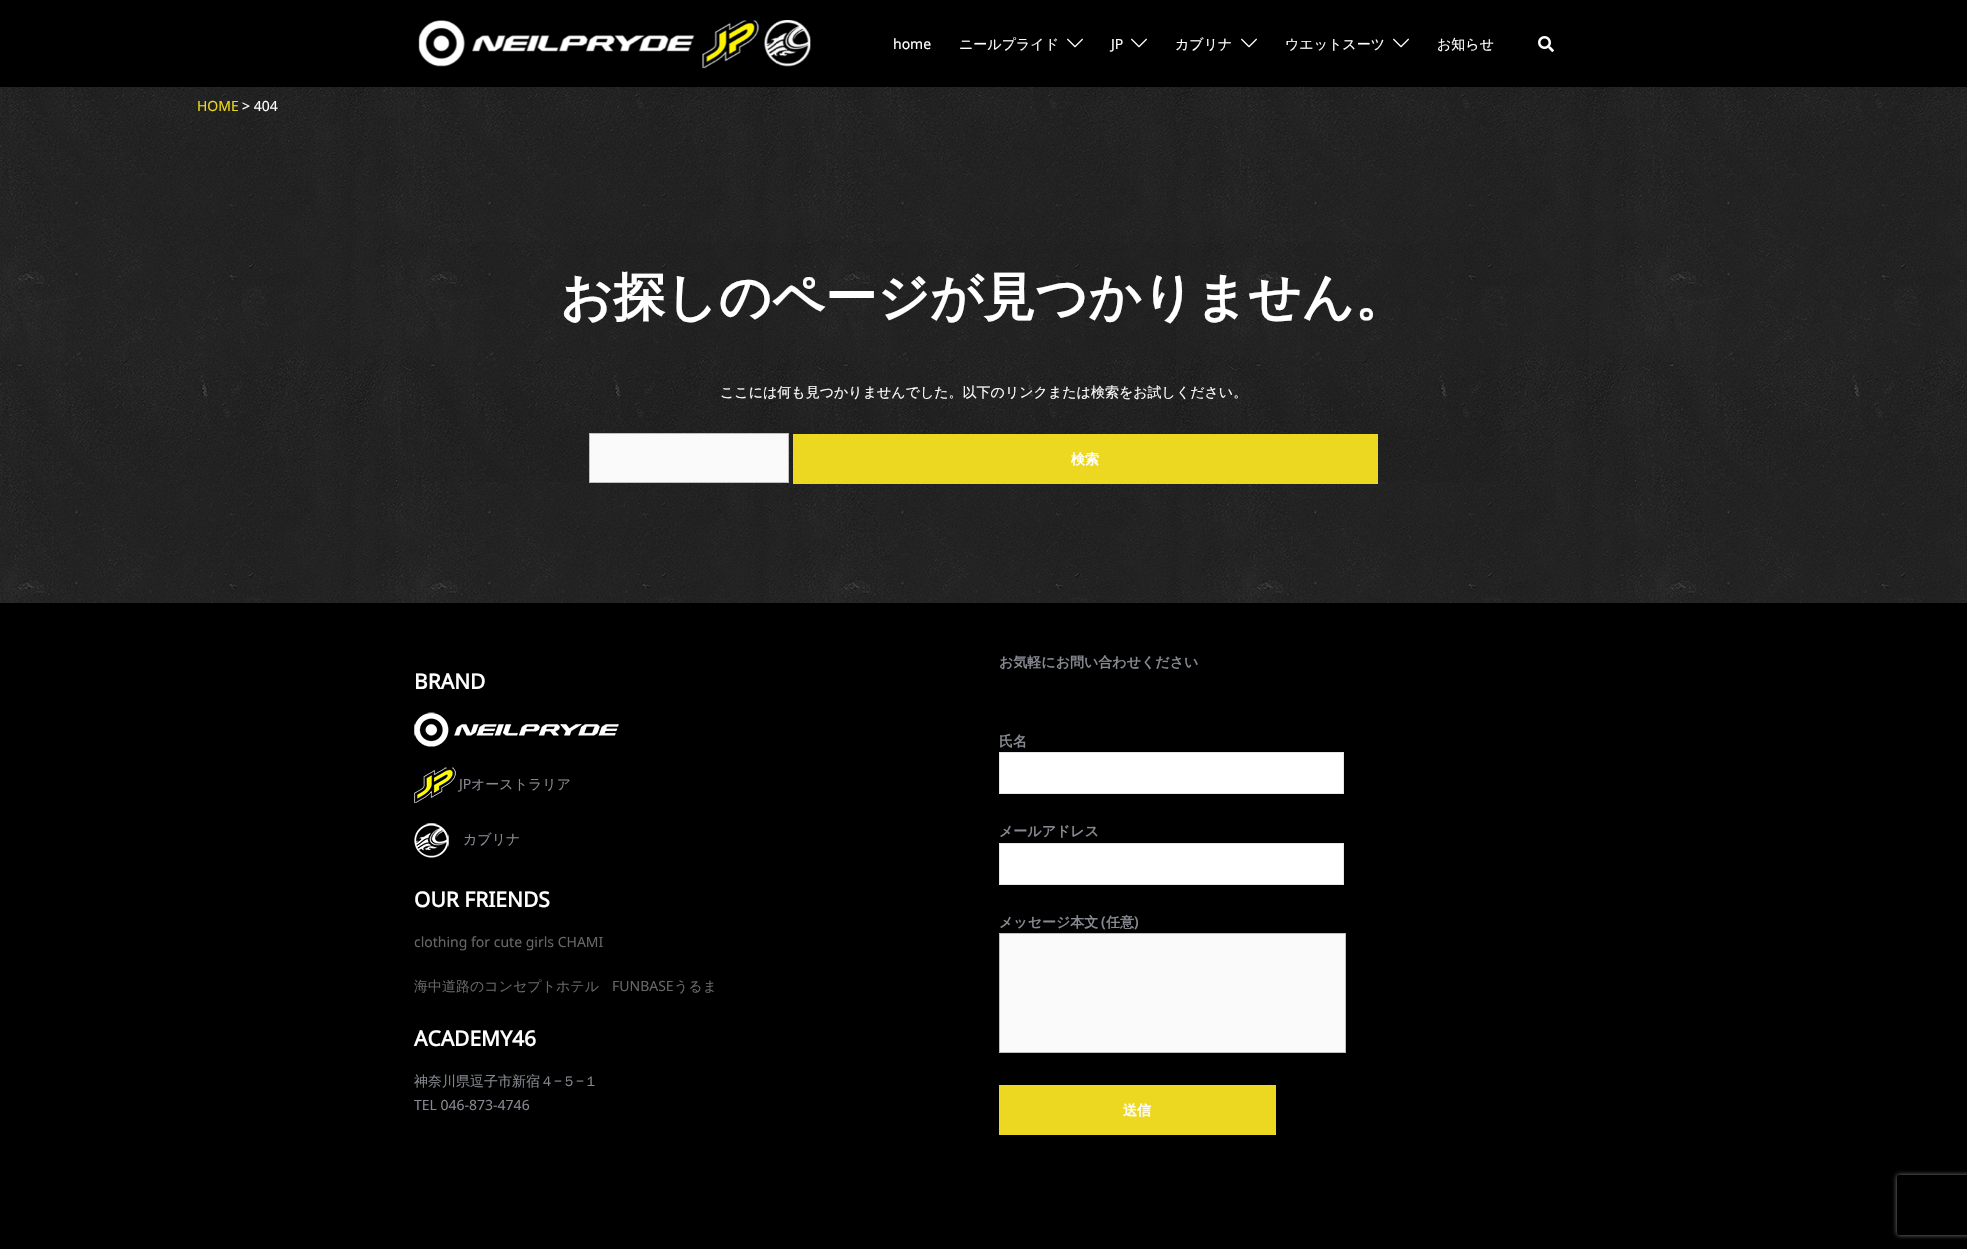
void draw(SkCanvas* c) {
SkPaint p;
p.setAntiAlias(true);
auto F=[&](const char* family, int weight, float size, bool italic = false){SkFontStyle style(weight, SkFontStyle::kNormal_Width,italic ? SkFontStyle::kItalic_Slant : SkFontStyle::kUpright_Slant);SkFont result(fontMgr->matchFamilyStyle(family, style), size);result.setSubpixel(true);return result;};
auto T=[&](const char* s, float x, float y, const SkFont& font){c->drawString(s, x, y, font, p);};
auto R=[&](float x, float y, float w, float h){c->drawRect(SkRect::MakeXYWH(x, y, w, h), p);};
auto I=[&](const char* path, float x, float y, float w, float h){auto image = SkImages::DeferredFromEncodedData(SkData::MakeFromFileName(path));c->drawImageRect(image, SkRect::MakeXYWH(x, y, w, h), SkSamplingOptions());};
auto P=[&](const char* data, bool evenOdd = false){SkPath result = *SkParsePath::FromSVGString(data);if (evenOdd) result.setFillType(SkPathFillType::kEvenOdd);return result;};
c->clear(0xffffffff);
I("1.png",0,87,1967,516);
p.setColor(0x12000000);
p.setMaskFilter(SkMaskFilter::MakeBlur(kNormal_SkBlurStyle, 15));
c->drawRect(SkRect::MakeXYWH(0,0,1967,87),p);
p.setMaskFilter(nullptr);
p.setColor(0xff000000);
R(0,0,1967,87);
I("2.png",418,20,393,49);
auto f1 = F("Noto Sans",400,14);
p.setColor(0xffffffff);
T("home",893,49,f1);
auto f2 = F("WenQuanYi Zen Hei",500,14);
T("ニールプライド",959,49,f2);
I("3.png",1067,38,16,10);
T("JP",1111,49,f1);
I("3.png",1131,38,16,10);
T("カブリナ",1175,49,f2);
I("3.png",1241,38,16,10);
T("ウエットスーツ",1285,49,f2);
I("3.png",1393,38,16,10);
T("お知らせ",1437,49,f2);
I("4.png",1538,36,16,16);
p.setColor(0xffedd821);
T("HOME",197,111,f1);
p.setColor(0xffffffff);
T("> 404",242,111,f1);
p.setColor(0x0d000000);
R(401,242,1099,240);
auto f3 = F("WenQuanYi Zen Hei",700,52);
p.setColor(0xffffffff);
T("お探しのページが見つかりません。",560,315,f3);
T("ここには何も見つかりませんでした。以下のリンクまたは検索をお試しください。",720,397,f2);
p.setColor(0xfffafafa);
c->drawRect(SkRect::MakeXYWH(589.5,433.5,199,49),p);
p.setStroke(true);
p.setStrokeWidth(1);
p.setColor(0xffbfbfbf);
c->drawRect(SkRect::MakeXYWH(589.5,433.5,199,49),p);
p.setStroke(false);
p.setColor(0xffedd821);
R(793,434,585,50);
auto f4 = F("WenQuanYi Zen Hei",700,14);
p.setColor(0xffffffff);
T("検索",1071,464,f4);
p.setColor(0xff000000);
R(0,603,1967,646);
auto f5 = F("Noto Sans",700,21);
p.setColor(0xffffffff);
T("BRAND",414,689,f5);
I("5.png",414,712,205,35);
I("6.png",414,767,42,36);
p.setColor(0xff868990);
T("JP",459,789,f1);
T("オーストラリア",471,789,f2);
I("7.png",414,823,35,35);
T("カブリナ",463,844,f2);
p.setColor(0xffffffff);
T("OUR FRIENDS",414,907,f5);
p.setColor(0xff666666);
T("clothing for cute girls CHAMI",414,947,f1);
T("海中道路のコンセプトホテル",414,991,f2);
T("FUNBASE",612,991,f1);
T("うるま",674,991,f2);
p.setColor(0xffffffff);
T("ACADEMY46",414,1046,f5);
p.setColor(0xff868990);
T("神奈川県逗子市新宿４",414,1086,f2);
T("−",554,1086,f1);
T("５",562,1086,f2);
T("−",576,1086,f1);
T("１",584,1086,f2);
T("TEL 046-873-4746",414,1110,f1);
T("お気軽にお問い合わせください",999,667,f4);
T("氏名",999,746,f4);
p.setColor(0xffffffff);
c->drawRect(SkRect::MakeXYWH(999.5,752.5,344,41),p);
p.setStroke(true);
p.setColor(0xffe6e6e6);
c->drawRect(SkRect::MakeXYWH(999.5,752.5,344,41),p);
p.setStroke(false);
p.setColor(0xff868990);
T("メールアドレス",999,836,f4);
p.setColor(0xffffffff);
c->drawRect(SkRect::MakeXYWH(999.5,843.5,344,41),p);
p.setStroke(true);
p.setColor(0xffe6e6e6);
c->drawRect(SkRect::MakeXYWH(999.5,843.5,344,41),p);
p.setStroke(false);
p.setColor(0xff868990);
T("メッセージ本文",999,927,f4);
auto f6 = F("Noto Sans",700,14);
T("(",1101,927,f6);
T("任意",1106,927,f4);
T(")",1134,927,f6);
p.setColor(0xfffafafa);
c->drawRect(SkRect::MakeXYWH(999.5,933.5,346,119),p);
p.setStroke(true);
p.setColor(0xffbfbfbf);
c->drawRect(SkRect::MakeXYWH(999.5,933.5,346,119),p);
p.setStroke(false);
p.setColor(0xffedd821);
R(999,1085,277,50);
p.setColor(0xffffffff);
T("送信",1123,1115,f4);
c->save();
c->clipPath(P("M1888 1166h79v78h-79zm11 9h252c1 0 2 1 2 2v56c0 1-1 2-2 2h-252c-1 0-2-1-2-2v-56c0-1 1-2 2-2z",true),true);
p.setColor(0xff808080);
p.setMaskFilter(SkMaskFilter::MakeBlur(kNormal_SkBlurStyle, 2.5));
c->drawRoundRect(SkRect::MakeXYWH(1897,1175,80,60),2,2,p);
p.setMaskFilter(nullptr);
c->restore();
}
